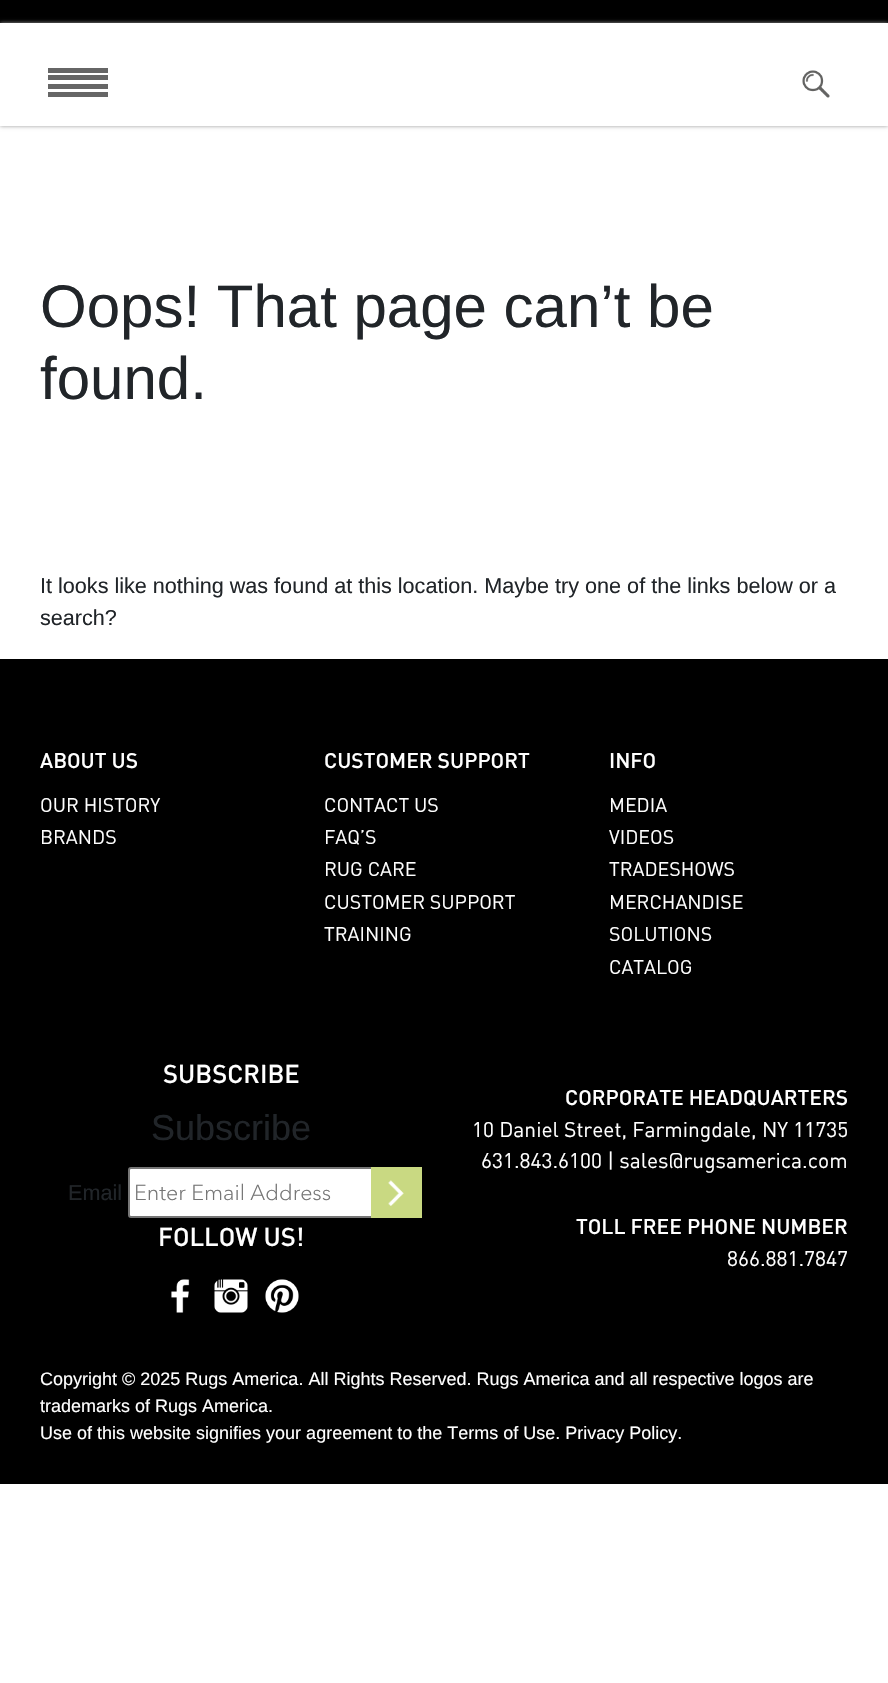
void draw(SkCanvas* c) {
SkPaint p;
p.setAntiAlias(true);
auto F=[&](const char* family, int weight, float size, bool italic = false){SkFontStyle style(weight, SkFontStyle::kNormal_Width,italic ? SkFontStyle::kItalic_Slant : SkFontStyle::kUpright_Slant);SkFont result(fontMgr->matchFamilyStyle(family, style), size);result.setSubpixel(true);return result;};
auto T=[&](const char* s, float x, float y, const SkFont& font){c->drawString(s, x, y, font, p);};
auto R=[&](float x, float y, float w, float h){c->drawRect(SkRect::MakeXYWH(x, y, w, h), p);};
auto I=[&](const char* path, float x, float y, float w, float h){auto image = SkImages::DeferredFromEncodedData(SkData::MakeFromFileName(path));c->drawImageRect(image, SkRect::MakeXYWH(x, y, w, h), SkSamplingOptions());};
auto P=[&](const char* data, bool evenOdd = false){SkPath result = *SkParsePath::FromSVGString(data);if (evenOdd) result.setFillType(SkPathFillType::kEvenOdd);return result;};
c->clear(0xffffffff);
p.setColor(0xff000000);
R(0,0,888,23);
c->save();
c->clipPath(P("M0 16h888v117h-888zm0 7h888v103h-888z",true),true);
p.setColor(0xff999999);
p.setMaskFilter(SkMaskFilter::MakeBlur(kNormal_SkBlurStyle, 2));
c->drawRect(SkRect::MakeXYWH(0,23,888,103),p);
p.setMaskFilter(nullptr);
c->restore();
p.setColor(0xff666666);
R(48,68,60,5);
R(48,75,60,5);
R(48,84,60,5);
R(48,92,60,5);
I("1.png",802,70,28,28);
auto f1 = F("Liberation Sans",400,60);
p.setColor(0xff212529);
T("Oops! That page can’t be",40,327,f1);
T("found.",40,399,f1);
auto f2 = F("Liberation Sans",400,21.6);
T("It looks like nothing was found at this location. Maybe try one of the links below or a",40,593,f2);
T("search?",40,625,f2);
p.setColor(0xff000000);
R(0,659,888,825);
auto f3 = F("DIN",500,21);
p.setColor(0xffffffff);
T("ABOUT US",40,768,f3);
auto f4 = F("DIN",400,19.5);
T("OUR HISTORY",40,812,f4);
T("BRANDS",40,844,f4);
T("CUSTOMER SUPPORT",324,768,f3);
T("CONTACT US",324,812,f4);
T("FAQ’S",324,844,f4);
T("RUG CARE",324,876,f4);
T("CUSTOMER SUPPORT",324,909,f4);
T("TRAINING",324,941,f4);
T("INFO",609,768,f3);
T("MEDIA",609,812,f4);
T("VIDEOS",609,844,f4);
T("TRADESHOWS",609,876,f4);
T("MERCHANDISE",609,909,f4);
T("SOLUTIONS",609,941,f4);
T("CATALOG",609,974,f4);
auto f5 = F("DIN",500,25.5);
T("SUBSCRIBE",163,1083,f5);
auto f6 = F("Liberation Sans",400,36);
p.setColor(0xff212529);
T("Subscribe",151,1140,f6);
T("Email",68,1200,f2);
p.setColor(0xffffffff);
c->drawRoundRect(SkRect::MakeXYWH(129,1168,263,49),2,2,p);
p.setStroke(true);
p.setStrokeWidth(2);
p.setColor(0xff767676);
c->drawRoundRect(SkRect::MakeXYWH(129,1168,263,49),2,2,p);
auto f7 = F("Avenir Next",300,21.6);
p.setStroke(false);
p.setColor(0xff757575);
T("Enter Email Address",134,1200,f7);
p.setColor(0xffc9d982);
R(371,1167,51,51);
I("2.png",388,1180,16,26);
p.setColor(0xffffffff);
T("FOLLOW US!",158,1246,f5);
I("3.png",171,1279,19,34);
I("4.png",214,1279,34,34);
I("5.png",265,1279,34,34);
T("CORPORATE HEADQUARTERS",565,1105,f3);
auto f8 = F("DIN",400,21);
T("10 Daniel Street, Farmingdale, NY 11735",472,1137,f8);
T("631.843.6100 | sales@rugsamerica.com",481,1168,f8);
T("TOLL FREE PHONE NUMBER",576,1234,f3);
T("866.881.7847",727,1266,f8);
auto f9 = F("Liberation Sans",400,18);
T("Copyright © 2025 Rugs America. All Rights Reserved. Rugs America and all respective logos are",40,1385,f9);
T("trademarks of Rugs America.",40,1412,f9);
T("Use of this website signifies your agreement to the Terms of Use. Privacy Policy.",40,1439,f9);
}
